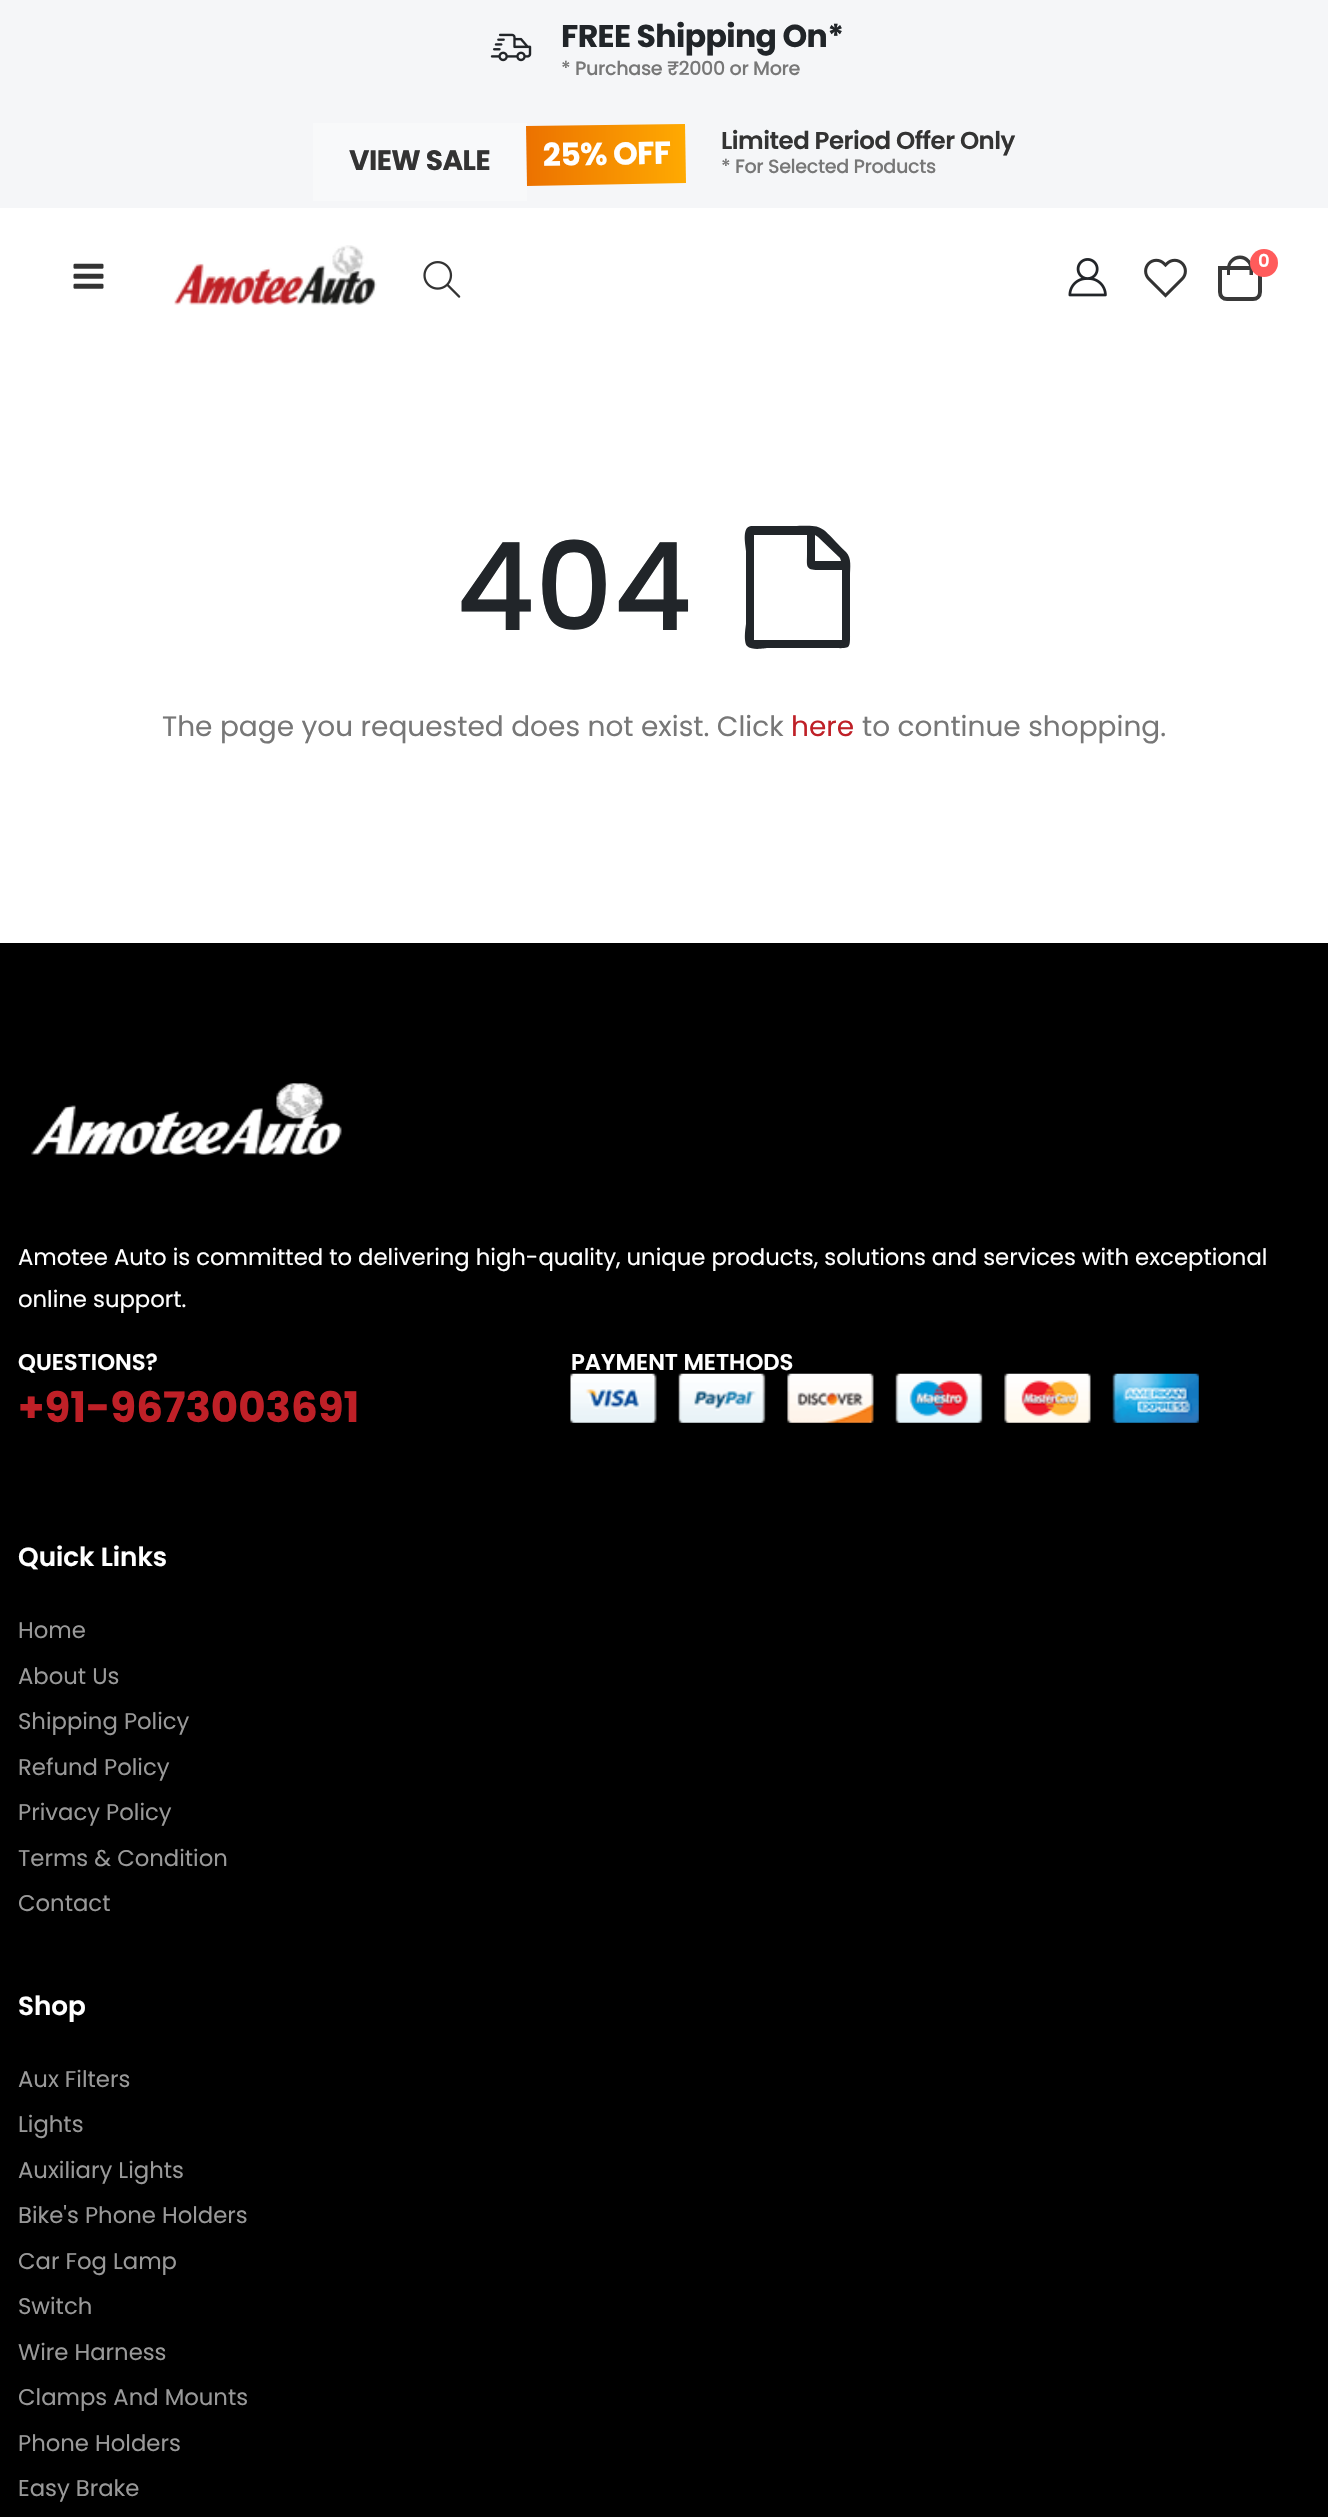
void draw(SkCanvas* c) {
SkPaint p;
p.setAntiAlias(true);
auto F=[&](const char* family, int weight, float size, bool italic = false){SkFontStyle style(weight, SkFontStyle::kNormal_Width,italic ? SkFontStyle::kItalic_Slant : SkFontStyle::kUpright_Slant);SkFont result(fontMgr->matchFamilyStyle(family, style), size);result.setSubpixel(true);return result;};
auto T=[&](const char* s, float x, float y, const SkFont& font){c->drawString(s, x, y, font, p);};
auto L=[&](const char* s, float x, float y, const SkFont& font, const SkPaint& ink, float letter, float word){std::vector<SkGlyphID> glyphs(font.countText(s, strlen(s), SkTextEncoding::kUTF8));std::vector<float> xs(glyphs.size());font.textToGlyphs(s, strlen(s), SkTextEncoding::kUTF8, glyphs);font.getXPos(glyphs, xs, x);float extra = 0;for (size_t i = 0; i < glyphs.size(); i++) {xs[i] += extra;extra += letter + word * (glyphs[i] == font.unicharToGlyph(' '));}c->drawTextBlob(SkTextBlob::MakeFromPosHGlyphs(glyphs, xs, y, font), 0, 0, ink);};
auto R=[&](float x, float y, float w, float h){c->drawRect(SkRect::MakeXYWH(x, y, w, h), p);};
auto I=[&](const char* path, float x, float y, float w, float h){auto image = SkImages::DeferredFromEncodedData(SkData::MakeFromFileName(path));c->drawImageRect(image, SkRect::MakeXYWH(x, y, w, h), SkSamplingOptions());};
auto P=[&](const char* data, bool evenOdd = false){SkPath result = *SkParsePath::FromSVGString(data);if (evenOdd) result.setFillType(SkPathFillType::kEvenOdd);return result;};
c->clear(0xffffffff);
p.setColor(0xfff5f6f8);
R(0,0,1328,208);
I("1.png",490,33,42,29);
auto f1 = F("Poppins",700,31.5);
p.setColor(0xff212529);
L("FREE Shipping On*",561,47,f1,p,-.6,0);
auto f2 = F("Poppins",500,19.25);
p.setColor(0xff777777);
L("* Purchase ₹2000 or More",561,75,f2,p,-.4,0);
p.setColor(0xfff8f9fa);
R(313,123,214,78);
auto f3 = F("Poppins",700,28);
p.setColor(0xff333333);
L("VIEW SALE",349,170,f3,p,-.5,0);
{
const SkColor colors[] = {0xffec7200,0xffffaa01};
const float stops[] = {0,1};
const SkPoint ends[] = {{527,156}, {686,153}};
p.setShader(SkGradientShader::MakeLinear(ends, colors, stops, 2, SkTileMode::kClamp));
p.setAlpha(255);
}
c->drawPath(P("M526 126l159-2l1 59l-159 3z"),p);
p.setShader(nullptr);
p.setColor(0xffffffff);
c->save();
c->rotate(-1,543,166);
L("25% OFF",543,166,f1,p,-.6,0);
c->restore();
auto f4 = F("Poppins",600,24.5);
p.setColor(0xff333333);
L("Limited Period Offer Only",721,149,f4,p,-.5,0);
p.setColor(0xff777777);
L("* For Selected Products",721,173,f2,p,-.4,0);
I("2.png",73,263,31,26);
I("3.png",174,245,203,60);
I("4.png",423,261,38,37);
I("5.png",1068,258,39,39);
I("6.png",1144,258,43,40);
p.setStroke(true);
p.setStrokeWidth(4);
p.setColor(0xff393939);
c->drawPath(P("M1220 268h40v24c0 4-3 7-7 7h-26c-4 0-7-3-7-7z"),p);
p.setStroke(false);
c->drawPath(P("M1240 255.5c7 0 13 6 13 13v6.5h-26v-6.5c0-7 5.5-13 13-13zm0 3.5c5 0 9.5 4.5 9.5 9.5v6.5h-19.5v-6.5c0-5 4.5-9.5 10-9.5z",true),p);
p.setColor(0xffff5b5b);
c->drawCircle(1264,263,14,p);
auto f5 = F("Poppins",600,18);
p.setColor(0xffffffff);
T("0",1258,267,f5);
auto f6 = F("Poppins",500,122);
p.setColor(0xff212529);
T("404",456,630,f6);
c->drawPath(P("M846 552c6 6 4 16 4 24v53c0 22 2 19-21 19h-62c-1 0-15 3-20-2c-4-5-1-21-1-22v-73c0-4-5-24 5-25h32c44 0 32-5 63 26zm-31-17v26h26l-1-3l-22-21zm27 105v-70h-24c-13 0-11-4-11-16v-19h-53v105z"),p);
auto f7 = F("Poppins",400,28);
p.setColor(0xff777777);
T("The page you requested does not exist. Click",162,736,f7);
p.setColor(0xffbf2027);
T("here",791,736,f7);
p.setColor(0xff777777);
T("to continue shopping.",862,736,f7);
p.setColor(0xff000000);
R(0,943,1328,1574);
I("7.png",31,1083,311,72);
auto f8 = F("Poppins",400,22.75);
p.setColor(0xffffffff);
T("Amotee Auto is committed to delivering high-quality, unique products, solutions and services with exceptional",18,1265,f8);
T("online support.",18,1307,f8);
auto f9 = F("Poppins",600,22.75);
T("QUESTIONS?",18,1370,f9);
auto f10 = F("Poppins",700,42);
p.setColor(0xffbf2027);
T("+91-9673003691",18,1422,f10);
p.setColor(0xffffffff);
T("PAYMENT METHODS",571,1370,f9);
I("8.png",570,1373,629,50);
auto f11 = F("Poppins",600,26.25);
T("Quick Links",18,1566,f11);
p.setColor(0xff999999);
T("Home",18,1638,f8);
T("About Us",18,1684,f8);
T("Shipping Policy",18,1729,f8);
T("Refund Policy",18,1775,f8);
T("Privacy Policy",18,1820,f8);
T("Terms & Condition",18,1866,f8);
T("Contact",18,1911,f8);
p.setColor(0xffffffff);
T("Shop",18,2015,f11);
p.setColor(0xff999999);
T("Aux Filters",18,2087,f8);
T("Lights",18,2132,f8);
T("Auxiliary Lights",18,2178,f8);
T("Bike's Phone Holders",18,2223,f8);
T("Car Fog Lamp",18,2269,f8);
T("Switch",18,2314,f8);
T("Wire Harness",18,2360,f8);
T("Clamps And Mounts",18,2405,f8);
T("Phone Holders",18,2451,f8);
T("Easy Brake",18,2496,f8);
}
